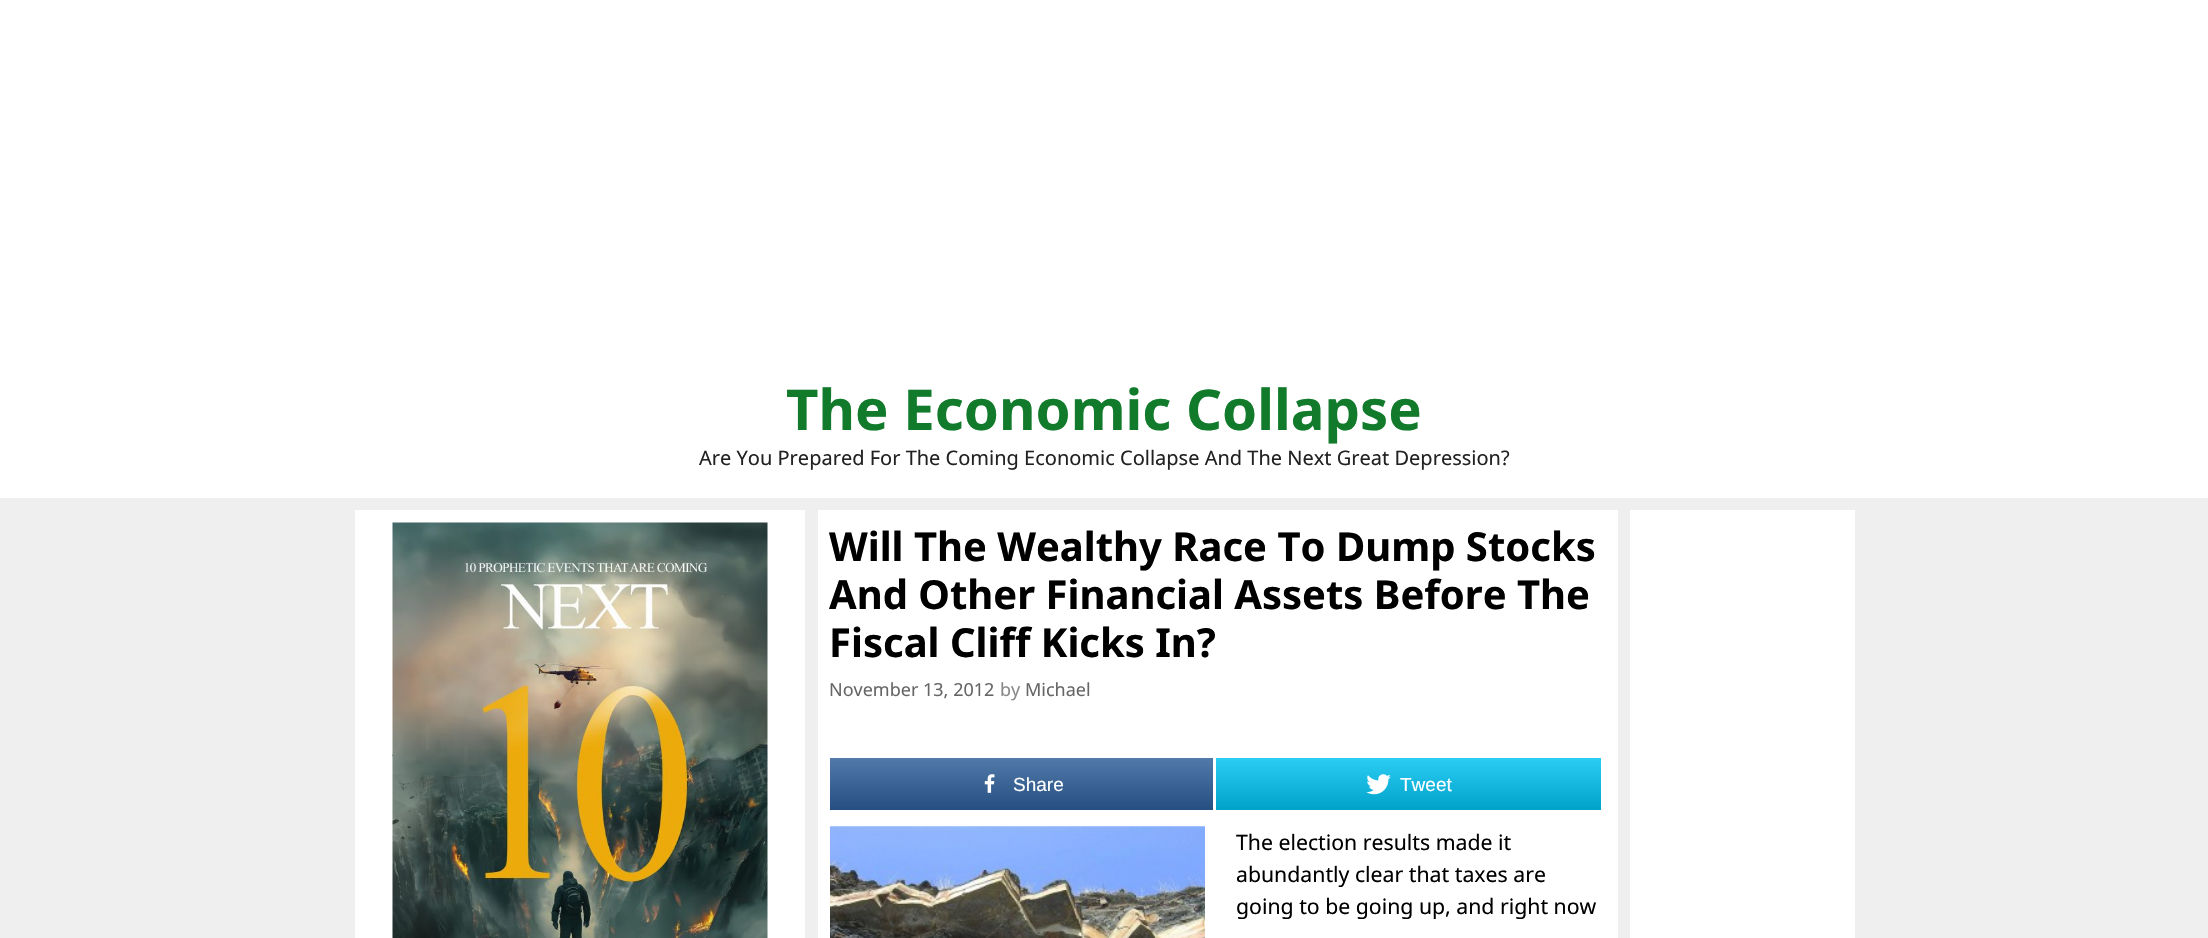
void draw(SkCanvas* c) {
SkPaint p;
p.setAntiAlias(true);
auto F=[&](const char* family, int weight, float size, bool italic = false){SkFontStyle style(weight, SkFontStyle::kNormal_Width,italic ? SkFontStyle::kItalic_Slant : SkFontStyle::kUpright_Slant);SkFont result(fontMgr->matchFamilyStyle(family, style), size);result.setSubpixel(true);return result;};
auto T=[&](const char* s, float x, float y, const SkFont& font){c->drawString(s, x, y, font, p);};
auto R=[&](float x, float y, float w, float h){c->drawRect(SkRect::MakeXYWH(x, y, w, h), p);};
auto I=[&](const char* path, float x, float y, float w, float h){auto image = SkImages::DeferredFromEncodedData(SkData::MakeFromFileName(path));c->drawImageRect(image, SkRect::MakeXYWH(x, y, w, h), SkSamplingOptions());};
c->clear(0xffefefef);
p.setColor(0xffffffff);
R(0,0,2208,498);
auto f1 = F("Noto Sans",700,56.25);
p.setColor(0xff117a2b);
T("The Economic Collapse",786,430,f1);
auto f2 = F("Noto Sans",400,20);
p.setColor(0xff222222);
T("Are You Prepared For The Coming Economic Collapse And The Next Great Depression?",699,465,f2);
p.setColor(0xffffffff);
R(355,510,450,428);
I("1.png",392,522,376,416);
R(818,510,800,428);
auto f3 = F("Noto Sans",700,40);
p.setColor(0xff000000);
T("Will The Wealthy Race To Dump Stocks",829,561,f3);
T("And Other Financial Assets Before The",829,609,f3);
T("Fiscal Cliff Kicks In?",829,657,f3);
auto f4 = F("Noto Sans",400,18);
p.setColor(0xff666666);
T("November 13, 2012",829,696,f4);
p.setColor(0xff888888);
T("by",1000,696,f4);
p.setColor(0xff666666);
T("Michael",1025,696,f4);
{
const SkColor colors[] = {0xff254f80,0xff517aab};
const float stops[] = {0,1};
const SkPoint ends[] = {{1021,810}, {1021,758}};
p.setShader(SkGradientShader::MakeLinear(ends, colors, stops, 2, SkTileMode::kClamp));
p.setAlpha(255);
}
R(830,758,383,52);
I("2.png",984,774,11,19);
auto f5 = F("Liberation Sans",400,19);
p.setShader(nullptr);
p.setColor(0xffffffff);
T("Share",1013,791,f5);
{
const SkColor colors[] = {0xff00a2ca,0xff2bcdf5};
const float stops[] = {0,1};
const SkPoint ends[] = {{1409,810}, {1409,758}};
p.setShader(SkGradientShader::MakeLinear(ends, colors, stops, 2, SkTileMode::kClamp));
p.setAlpha(255);
}
R(1216,758,385,52);
I("3.png",1366,774,25,21);
p.setShader(nullptr);
p.setColor(0xffffffff);
T("Tweet",1400,791,f5);
I("4.png",830,826,375,112);
auto f6 = F("Noto Sans",400,21.25);
p.setColor(0xff000000);
T("The election results made it",1236,850,f6);
T("abundantly clear that taxes are",1236,882,f6);
T("going to be going up, and right now",1236,914,f6);
p.setColor(0xffffffff);
R(1630,510,225,428);
}
